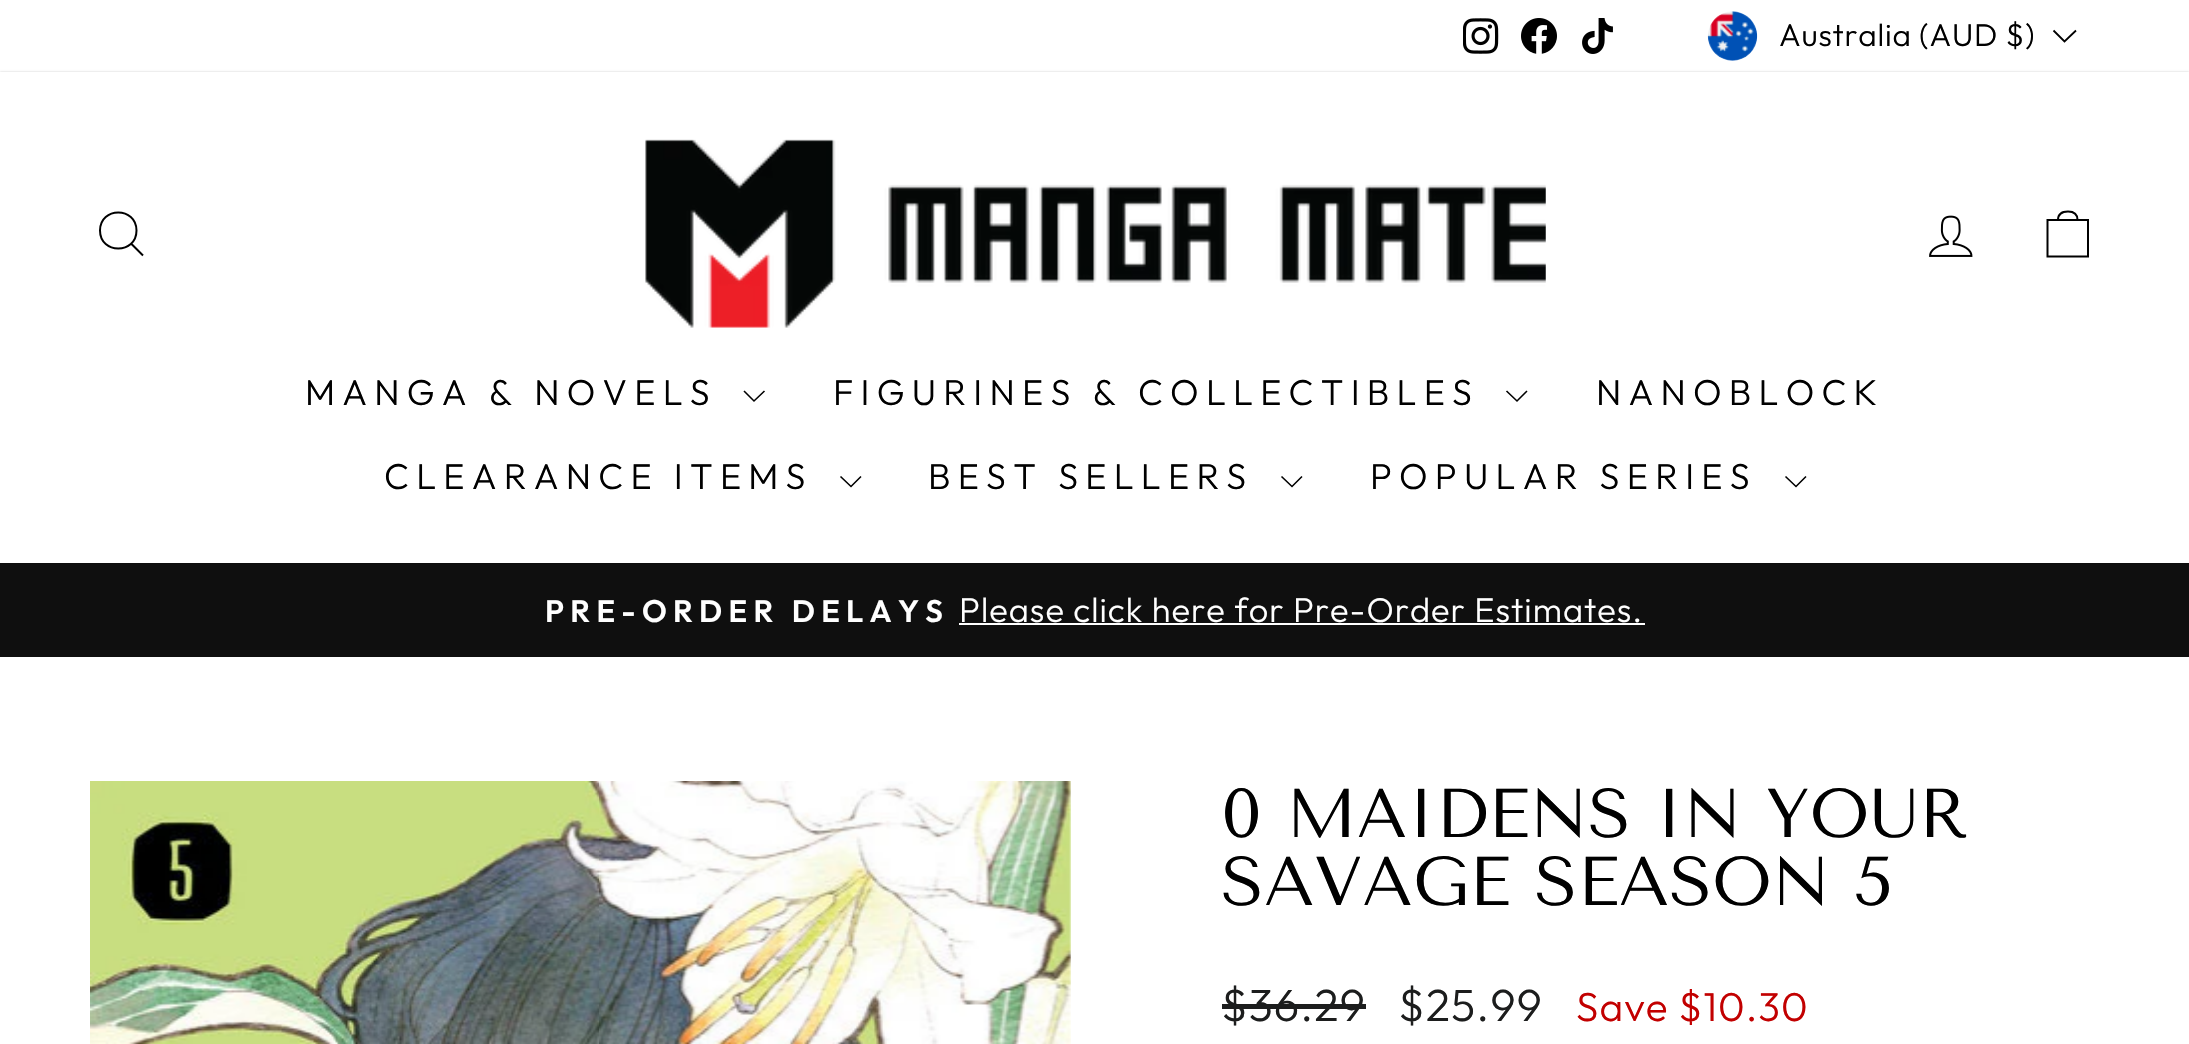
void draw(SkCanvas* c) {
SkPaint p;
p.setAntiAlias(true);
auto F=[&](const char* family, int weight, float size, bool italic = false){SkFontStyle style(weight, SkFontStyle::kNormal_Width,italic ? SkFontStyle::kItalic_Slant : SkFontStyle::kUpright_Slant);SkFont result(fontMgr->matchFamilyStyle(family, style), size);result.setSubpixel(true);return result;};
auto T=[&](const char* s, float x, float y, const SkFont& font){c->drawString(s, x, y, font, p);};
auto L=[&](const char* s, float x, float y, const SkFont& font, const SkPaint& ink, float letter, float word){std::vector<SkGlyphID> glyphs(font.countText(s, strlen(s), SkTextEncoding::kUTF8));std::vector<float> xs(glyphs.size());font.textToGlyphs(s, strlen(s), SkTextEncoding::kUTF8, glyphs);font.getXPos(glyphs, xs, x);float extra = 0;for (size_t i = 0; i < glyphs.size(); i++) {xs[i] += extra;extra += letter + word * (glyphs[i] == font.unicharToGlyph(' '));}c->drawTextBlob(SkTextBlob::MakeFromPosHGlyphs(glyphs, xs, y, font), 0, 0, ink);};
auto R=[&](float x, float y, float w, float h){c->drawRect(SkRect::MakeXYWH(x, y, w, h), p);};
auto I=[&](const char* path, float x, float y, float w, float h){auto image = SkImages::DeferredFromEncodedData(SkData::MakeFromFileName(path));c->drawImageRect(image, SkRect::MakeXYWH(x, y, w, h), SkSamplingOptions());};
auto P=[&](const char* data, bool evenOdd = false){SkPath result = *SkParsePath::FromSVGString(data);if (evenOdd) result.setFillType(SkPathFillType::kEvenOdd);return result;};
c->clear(0xffffffff);
I("1.png",1463,18,36,36);
I("2.png",1521,18,36,36);
I("3.png",1582,18,31,36);
I("4.png",1707,11,51,50);
auto f1 = F("Outfit",300,31.5);
p.setColor(0xff000000);
L("Australia (AUD $)",1779,46,f1,p,.75,0);
p.setStroke(true);
p.setStrokeWidth(1.8);
c->drawPath(P("M2053.5 30.5l11 11l11.5-11"),p);
p.setStroke(false);
p.setColor(0xff0f0f0f);
R(0,563,2189,94);
p.setColor(0x33000000);
p.setMaskFilter(SkMaskFilter::MakeBlur(kNormal_SkBlurStyle, 1));
c->drawRect(SkRect::MakeXYWH(0,72,2189,491),p);
p.setMaskFilter(nullptr);
p.setColor(0xffffffff);
R(0,72,2189,491);
p.setStroke(true);
p.setStrokeWidth(2);
p.setColor(0xff000000);
c->drawPath(P("M136.5 230.5c0 24-36.5 24-36.5 0c0-24 36.5-24 36.5 0zm6.5 25l-11.5-11.5"),p);
I("5.png",645,139,901,189);
I("6.png",1929,215,44,42);
c->drawPath(P("M2047.5 220h40.5v36.5h-40.5zm10.5 0c0-7 4.5-8.5 10-8.5c5 0 9.5 1.5 9.5 8.5"),p);
auto f2 = F("Outfit",300,36);
p.setStroke(false);
L("MANGA & NOVELS",305,405,f2,p,7.2,0);
p.setStroke(true);
p.setStrokeWidth(1.6);
c->drawPath(P("M744 391l10 10l10.5-10"),p);
p.setStroke(false);
L("FIGURINES & COLLECTIBLES",833,405,f2,p,7.2,0);
p.setStroke(true);
c->drawPath(P("M1506.5 391l10.5 10l10-10"),p);
p.setStroke(false);
L("NANOBLOCK",1596,405,f2,p,7.2,0);
L("CLEARANCE ITEMS",384,489,f2,p,7.2,0);
p.setStroke(true);
c->drawPath(P("M840.5 476.5l10.5 10l10-10"),p);
p.setStroke(false);
L("BEST SELLERS",928,489,f2,p,7.2,0);
p.setStroke(true);
c->drawPath(P("M1281.5 476.5l10.5 10l10-10"),p);
p.setStroke(false);
L("POPULAR SERIES",1370,489,f2,p,7.2,0);
p.setStroke(true);
c->drawPath(P("M1785.5 476.5l10.5 10l10-10"),p);
auto f3 = F("Outfit",600,31);
p.setStroke(false);
p.setColor(0xffffffff);
L("PRE-ORDER DELAYS",545,622,f3,p,6.25,0);
auto f4 = F("Outfit",300,34.4);
L("Please click here for Pre-Order Estimates.",959,622,f4,p,1,0);
R(959,623,686,2);
I("7.png",90,781,981,263);
auto f5 = F("Tenor Sans",400,68.8);
p.setColor(0xff000000);
T("0 MAIDENS IN YOUR",1221,837,f5);
T("SAVAGE SEASON 5",1221,905,f5);
auto f6 = F("Outfit",300,45);
p.setColor(0xff1c1d1d);
L("$36.29",1221,1021,f6,p,1,0);
R(1222,1004,144,5);
L("$25.99",1398,1021,f6,p,1,0);
auto f7 = F("Outfit",300,40.5);
p.setColor(0xffc20000);
L("Save $10.30",1576,1021,f7,p,1,0);
}
